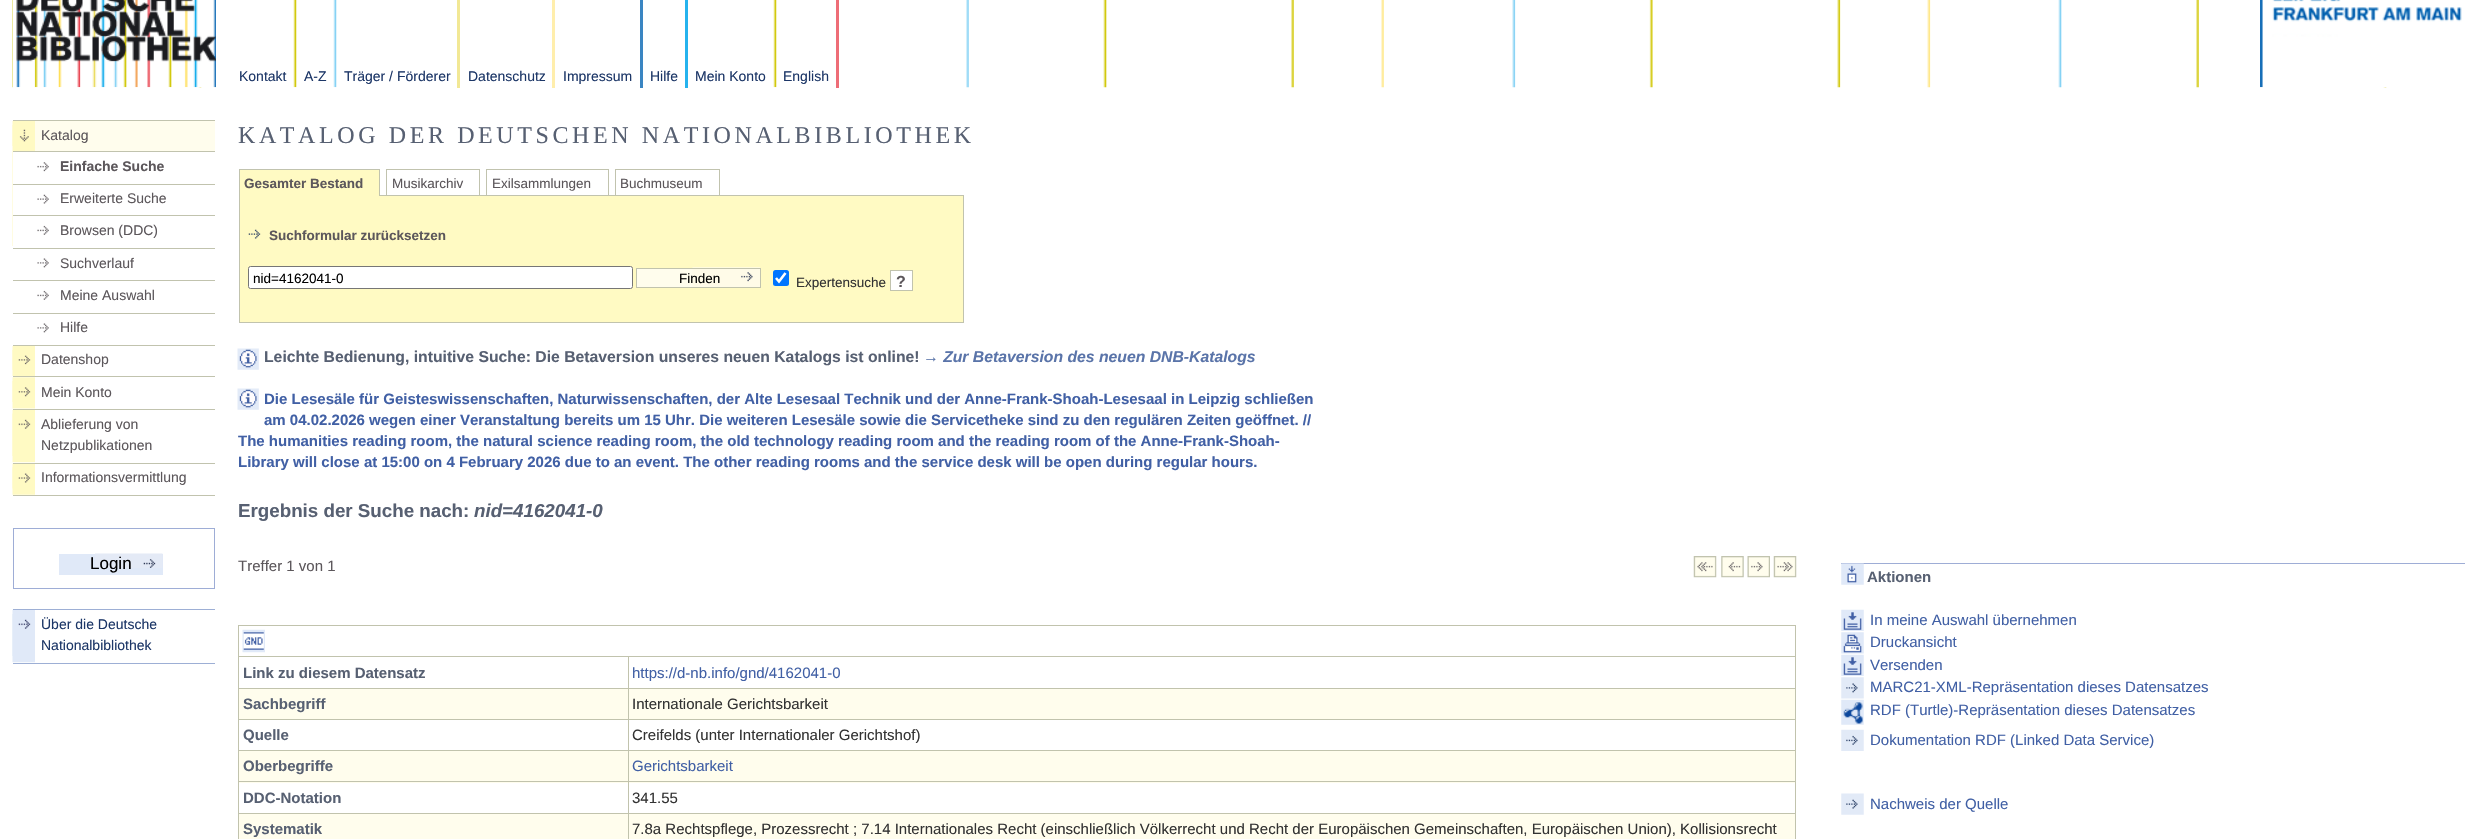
void draw(SkCanvas* c) {
SkPaint p;
p.setAntiAlias(true);
auto F=[&](const char* family, int weight, float size, bool italic = false){SkFontStyle style(weight, SkFontStyle::kNormal_Width,italic ? SkFontStyle::kItalic_Slant : SkFontStyle::kUpright_Slant);SkFont result(fontMgr->matchFamilyStyle(family, style), size);result.setSubpixel(true);return result;};
auto T=[&](const char* s, float x, float y, const SkFont& font){c->drawString(s, x, y, font, p);};
auto L=[&](const char* s, float x, float y, const SkFont& font, const SkPaint& ink, float letter, float word){std::vector<SkGlyphID> glyphs(font.countText(s, strlen(s), SkTextEncoding::kUTF8));std::vector<float> xs(glyphs.size());font.textToGlyphs(s, strlen(s), SkTextEncoding::kUTF8, glyphs);font.getXPos(glyphs, xs, x);float extra = 0;for (size_t i = 0; i < glyphs.size(); i++) {xs[i] += extra;extra += letter + word * (glyphs[i] == font.unicharToGlyph(' '));}c->drawTextBlob(SkTextBlob::MakeFromPosHGlyphs(glyphs, xs, y, font), 0, 0, ink);};
auto R=[&](float x, float y, float w, float h){c->drawRect(SkRect::MakeXYWH(x, y, w, h), p);};
auto Q=[&](float x, float y, float w, float h, float radius){c->drawRoundRect(SkRect::MakeXYWH(x, y, w, h), radius, radius, p);};
auto I=[&](const char* path, float x, float y, float w, float h){auto image = SkImages::DeferredFromEncodedData(SkData::MakeFromFileName(path));c->drawImageRect(image, SkRect::MakeXYWH(x, y, w, h), SkSamplingOptions());};
auto P=[&](const char* data, bool evenOdd = false){SkPath result = *SkParsePath::FromSVGString(data);if (evenOdd) result.setFillType(SkPathFillType::kEvenOdd);return result;};
c->clear(0xffffffff);
I("1.png",12,0,2375,88);
p.setStroke(true);
p.setStrokeWidth(1);
p.setColor(0xffffffff);
c->drawRect(SkRect::MakeXYWH(13.5,-.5,2454,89),p);
I("2.png",16,0,200,88);
p.setStroke(false);
R(288,0,548,88);
I("3.png",293,0,4,88);
auto f1 = F("Liberation Sans",400,14);
p.setColor(0xff1c3667);
T("Kontakt",239,81,f1);
I("4.png",333,0,4,88);
T("A-Z",304,81,f1);
p.setColor(0xfff2e895);
R(457,0,3,88);
p.setColor(0xff1c3667);
T("Träger / Förderer",344,81,f1);
p.setColor(0xffffeeac);
R(552,0,3,88);
p.setColor(0xff1c3667);
T("Datenschutz",468,81,f1);
p.setColor(0xff3a85c2);
R(640,0,3,88);
p.setColor(0xff1c3667);
T("Impressum",563,81,f1);
p.setColor(0xff26b3ee);
R(685,0,3,88);
p.setColor(0xff1c3667);
T("Hilfe",650,81,f1);
I("3.png",773,0,4,88);
T("Mein Konto",695,81,f1);
p.setColor(0xffee6d77);
R(836,0,3,88);
p.setColor(0xff1c3667);
T("English",783,81,f1);
I("5.png",2260,0,202,88);
p.setColor(0xffc1c3ae);
R(13,495,202,1);
p.setColor(0xfffffded);
R(35,121,180,30);
I("6.png",12,121,23,125);
p.setColor(0xffc1c3ae);
R(13,120,202,1);
I("7.png",12,125,17,21);
p.setColor(0xff5c575b);
T("Katalog",41,140,f1);
p.setColor(0xffffffff);
R(13,152,22,94);
p.setColor(0xffc1c3ae);
R(13,151,202,1);
I("8.png",37,162,12,10);
auto f2 = F("Liberation Sans",700,14);
p.setColor(0xff5c575b);
T("Einfache Suche",60,171,f2);
p.setColor(0xffc1c3ae);
R(13,184,202,1);
I("9.png",37,194,12,10);
p.setColor(0xff5c575b);
T("Erweiterte Suche",60,203,f1);
p.setColor(0xffc1c3ae);
R(13,215,202,1);
I("10.png",37,225,12,10);
p.setColor(0xff5c575b);
T("Browsen (DDC)",60,235,f1);
p.setColor(0xffc1c3ae);
R(13,248,202,1);
I("11.png",37,258,12,10);
p.setColor(0xff5c575b);
T("Suchverlauf",60,268,f1);
p.setColor(0xffc1c3ae);
R(13,280,202,1);
I("10.png",37,290,12,10);
p.setColor(0xff5c575b);
T("Meine Auswahl",60,300,f1);
p.setColor(0xffc1c3ae);
R(13,313,202,1);
I("11.png",37,323,12,10);
p.setColor(0xff5c575b);
T("Hilfe",60,332,f1);
I("12.png",12,346,23,30);
p.setColor(0xffc1c3ae);
R(13,345,202,1);
I("13.png",12,350,19,20);
p.setColor(0xff5c575b);
T("Datenshop",41,364,f1);
I("14.png",12,377,23,32);
p.setColor(0xffc1c3ae);
R(13,376,202,1);
I("15.png",12,381,19,21);
p.setColor(0xff5c575b);
T("Mein Konto",41,397,f1);
I("16.png",12,409,23,54);
p.setColor(0xffc1c3ae);
R(13,409,202,1);
I("17.png",12,413,19,43);
p.setColor(0xff5c575b);
T("Ablieferung von",41,429,f1);
T("Netzpublikationen",41,450,f1);
I("18.png",12,463,23,32);
p.setColor(0xffc1c3ae);
R(13,463,202,1);
I("19.png",12,467,19,22);
p.setColor(0xff5c575b);
T("Informationsvermittlung",41,482,f1);
p.setStroke(true);
p.setColor(0xff9eadd6);
c->drawRect(SkRect::MakeXYWH(13.5,528.5,201,60),p);
p.setStroke(false);
p.setColor(0xffe0e9f8);
R(59,554,104,21);
I("20.png",95,553,68,15);
auto f3 = F("Liberation Sans",400,17);
p.setColor(0xff000000);
T("Login",90,569,f3);
p.setColor(0xff9dafd5);
R(13,663,202,1);
I("21.png",12,609,23,54);
R(13,609,202,1);
I("22.png",12,614,19,42);
p.setColor(0xff1c3667);
T("Über die Deutsche",41,629,f1);
T("Nationalbibliothek",41,650,f1);
auto f4 = F("Liberation Serif",400,24);
p.setColor(0xff576072);
L("KATALOG DER DEUTSCHEN NATIONALBIBLIOTHEK",238,143,f4,p,3.6,0);
p.setStroke(true);
p.setColor(0xffc1c3ae);
c->drawRect(SkRect::MakeXYWH(386.5,169.5,93,38),p);
c->drawRect(SkRect::MakeXYWH(486.5,169.5,122,38),p);
c->drawRect(SkRect::MakeXYWH(615.5,169.5,104,38),p);
p.setStroke(false);
p.setColor(0xfffffac3);
c->drawRect(SkRect::MakeXYWH(239.5,195.5,724,127),p);
p.setStroke(true);
p.setColor(0xffc1c3ae);
c->drawRect(SkRect::MakeXYWH(239.5,195.5,724,127),p);
p.setStroke(false);
p.setColor(0xfffffac3);
R(240,170,139,26);
p.setColor(0xffc1c3ae);
R(239,169,141,1);
R(379,169,1,27);
R(239,169,1,27);
auto f5 = F("Liberation Sans",700,13.5);
p.setColor(0xff5c575b);
T("Gesamter Bestand",244,188,f5);
auto f6 = F("Liberation Sans",400,13.5);
T("Musikarchiv",392,188,f6);
T("Exilsammlungen",492,188,f6);
T("Buchmuseum",620,188,f6);
I("23.png",248,229,13,10);
T("Suchformular zurücksetzen",269,240,f5);
p.setColor(0xffffffff);
c->drawRoundRect(SkRect::MakeXYWH(248.5,266.5,384,22),2,2,p);
p.setStroke(true);
p.setColor(0xff767676);
c->drawRoundRect(SkRect::MakeXYWH(248.5,266.5,384,22),2,2,p);
p.setStroke(false);
p.setColor(0xff000000);
T("nid=4162041-0",253,283,f6);
p.setColor(0xfffffded);
R(637,269,56,18);
I("24.png",692,267,68,20);
p.setStroke(true);
p.setColor(0xffc1c3ae);
c->drawRect(SkRect::MakeXYWH(636.5,268.5,124,19),p);
p.setStroke(false);
p.setColor(0xff000000);
T("Finden",679,283,f6);
p.setColor(0xff0075ff);
Q(773,270,16,16,2.5);
p.setStroke(true);
p.setStrokeWidth(2.6);
p.setColor(0xffffffff);
c->drawPath(P("M776 278l3 3.5l6.5-8.5"),p);
p.setStroke(false);
p.setColor(0xff333333);
T("Expertensuche",796,287,f6);
p.setColor(0xffffffff);
c->drawRect(SkRect::MakeXYWH(890.5,270.5,22,20),p);
p.setStroke(true);
p.setStrokeWidth(1);
p.setColor(0xffc1c3ae);
c->drawRect(SkRect::MakeXYWH(890.5,270.5,22,20),p);
auto f7 = F("Liberation Sans",700,16);
p.setStroke(false);
p.setColor(0xff5c575b);
T("?",896,287,f7);
I("25.png",237,348,22,22);
auto f8 = F("Liberation Sans",700,15.75);
p.setColor(0xff576072);
T("Leichte Bedienung, intuitive Suche: Die Betaversion unseres neuen Katalogs ist online!",264,362,f8);
auto f9 = F("Liberation Sans",700,15.75,true);
p.setColor(0xff5a74a9);
T("→ Zur Betaversion des neuen DNB-Katalogs",923,362,f9);
I("25.png",237,388,22,22);
auto f10 = F("Liberation Sans",700,15);
p.setColor(0xff4160a5);
T("Die Lesesäle für Geisteswissenschaften, Naturwissenschaften, der Alte Lesesaal Technik und der Anne-Frank-Shoah-Lesesaal in Leipzig schließen",264,404,f10);
T("am 04.02.2026 wegen einer Veranstaltung bereits um 15 Uhr. Die weiteren Lesesäle sowie die Servicetheke sind zu den regulären Zeiten geöffnet. //",264,425,f10);
T("The humanities reading room, the natural science reading room, the old technology reading room and the reading room of the Anne-Frank-Shoah-",238,446,f10);
T("Library will close at 15:00 on 4 February 2026 due to an event. The other reading rooms and the service desk will be open during regular hours.",238,467,f10);
auto f11 = F("Liberation Sans",700,18.75);
p.setColor(0xff576072);
T("Ergebnis der Suche nach:",238,517,f11);
auto f12 = F("Liberation Sans",700,18.75,true);
T("nid=4162041-0",474,517,f12);
auto f13 = F("Liberation Sans",400,15);
p.setColor(0xff5c575b);
T("Treffer 1 von 1",238,571,f13);
I("26.png",1693,556,24,22);
I("27.png",1721,556,23,22);
I("28.png",1747,556,23,22);
I("29.png",1773,556,24,22);
p.setColor(0xffc1c3ad);
R(238,625,1558,1);
R(1795,625,1,214);
R(238,625,1,214);
I("30.png",242,629,23,24);
R(238,656,1558,1);
p.setColor(0xff576072);
T("Link zu diesem Datensatz",243,678,f10);
p.setColor(0xff4160a5);
T("https://d-nb.info/gnd/4162041-0",632,678,f13);
p.setColor(0xffc1c3ad);
R(238,688,1558,1);
p.setColor(0xfffffded);
R(239,689,389,30);
p.setColor(0xff576072);
T("Sachbegriff",243,709,f10);
p.setColor(0xfffffded);
R(629,689,1166,30);
p.setColor(0xff333333);
T("Internationale Gerichtsbarkeit",632,709,f13);
p.setColor(0xffc1c3ad);
R(238,719,1558,1);
p.setColor(0xff576072);
T("Quelle",243,740,f10);
p.setColor(0xff333333);
T("Creifelds (unter Internationaler Gerichtshof)",632,740,f13);
p.setColor(0xffc1c3ad);
R(238,750,1558,1);
p.setColor(0xfffffded);
R(239,751,389,32);
p.setColor(0xff576072);
T("Oberbegriffe",243,771,f10);
p.setColor(0xfffffded);
R(629,751,1166,32);
p.setColor(0xff4160a5);
T("Gerichtsbarkeit",632,771,f13);
p.setColor(0xffc1c3ad);
R(238,781,1558,1);
p.setColor(0xff576072);
T("DDC-Notation",243,803,f10);
p.setColor(0xff333333);
T("341.55",632,803,f13);
p.setColor(0xffc1c3ad);
R(238,813,1558,1);
p.setColor(0xfffffded);
R(239,814,389,25);
p.setColor(0xff576072);
T("Systematik",243,834,f10);
p.setColor(0xfffffded);
R(629,814,1166,25);
p.setColor(0xffc1c3ad);
R(628,656,1,183);
p.setColor(0xff333333);
T("7.8a Rechtspflege, Prozessrecht ; 7.14 Internationales Recht (einschließlich Völkerrecht und Recht der Europäischen Gemeinschaften, Europäischen Union), Kollisionsrecht",632,834,f13);
p.setColor(0xff9eadd6);
R(1841,563,624,1);
I("31.png",1841,563,23,22);
p.setColor(0xff576072);
T("Aktionen",1867,582,f10);
I("32.png",1841,609,23,22);
p.setColor(0xff4160a5);
T("In meine Auswahl übernehmen",1870,625,f13);
I("33.png",1841,632,23,22);
T("Druckansicht",1870,647,f13);
I("32.png",1841,654,23,22);
T("Versenden",1870,670,f13);
I("34.png",1841,677,23,22);
T("MARC21-XML-Repräsentation dieses Datensatzes",1870,692,f13);
I("35.png",1841,699,23,26);
T("RDF (Turtle)-Repräsentation dieses Datensatzes",1870,715,f13);
I("36.png",1841,729,23,22);
T("Dokumentation RDF (Linked Data Service)",1870,745,f13);
I("37.png",1841,793,23,22);
T("Nachweis der Quelle",1870,809,f13);
}
